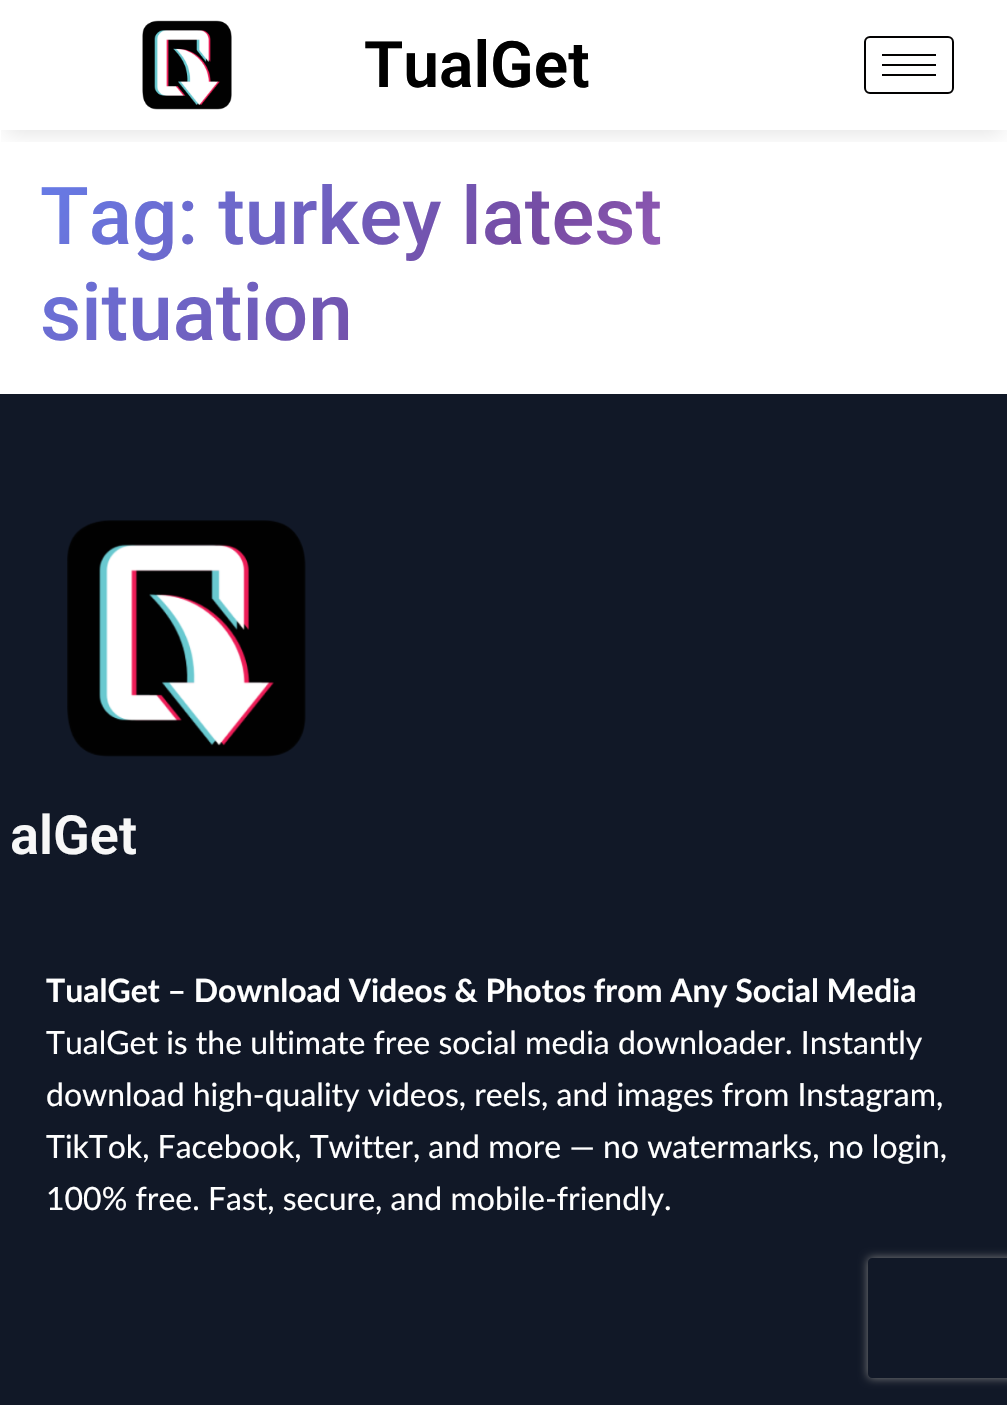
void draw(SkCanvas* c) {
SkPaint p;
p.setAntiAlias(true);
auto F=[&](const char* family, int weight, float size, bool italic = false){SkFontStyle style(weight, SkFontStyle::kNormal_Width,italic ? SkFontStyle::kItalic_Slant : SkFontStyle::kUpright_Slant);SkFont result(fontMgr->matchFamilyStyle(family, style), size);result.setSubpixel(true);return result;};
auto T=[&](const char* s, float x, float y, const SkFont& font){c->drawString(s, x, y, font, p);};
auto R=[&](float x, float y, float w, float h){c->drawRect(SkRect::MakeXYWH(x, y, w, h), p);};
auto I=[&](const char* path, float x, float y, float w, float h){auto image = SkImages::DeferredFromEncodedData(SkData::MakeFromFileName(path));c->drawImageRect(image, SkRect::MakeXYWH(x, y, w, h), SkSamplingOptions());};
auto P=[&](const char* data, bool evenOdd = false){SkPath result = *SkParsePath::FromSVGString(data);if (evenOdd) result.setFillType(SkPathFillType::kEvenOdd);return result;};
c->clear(0xffffffff);
c->save();
c->clipRect(SkRect::MakeXYWH(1,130,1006,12));
p.setColor(0x1a000000);
p.setMaskFilter(SkMaskFilter::MakeBlur(kNormal_SkBlurStyle, 10));
c->drawRect(SkRect::MakeXYWH(6,16,996,118),p);
p.setMaskFilter(nullptr);
c->restore();
I("1.png",142,20,90,90);
auto f1 = F("Roboto",600,64);
p.setColor(0xff000000);
T("TualGet",364,87,f1);
p.setStroke(true);
p.setStrokeWidth(2);
p.setColor(0xff020101);
c->drawRoundRect(SkRect::MakeXYWH(865,37,88,56),5,5,p);
p.setStroke(false);
p.setColor(0xff030201);
R(882,54,54,2);
R(882,64,54,2);
R(882,74,54,2);
auto f2 = F("Roboto",500,80);
{
const SkColor colors[] = {0xff667eea,0xff764ba2,0xfff093fb};
const float stops[] = {0,.5,1};
const SkPoint ends[] = {{214,-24}, {794,556}};
p.setShader(SkGradientShader::MakeLinear(ends, colors, stops, 3, SkTileMode::kClamp));
p.setAlpha(255);
}
T("Tag: turkey latest",40,244,f2);
T("situation",40,340,f2);
p.setShader(nullptr);
p.setColor(0xff111827);
R(0,394,1007,1011);
I("2.png",67,520,239,237);
auto f3 = F("Roboto",600,54);
p.setColor(0xfff7f7f7);
T("alGet",10,854,f3);
auto f4 = F("Lato",700,32);
p.setColor(0xffffffff);
T("TualGet – Download Videos & Photos from Any Social Media",46,1002,f4);
auto f5 = F("Lato",400,32);
T("TualGet is the ultimate free social media downloader. Instantly",46,1054,f5);
T("download high-quality videos, reels, and images from Instagram,",46,1106,f5);
T("TikTok, Facebook, Twitter, and more — no watermarks, no login,",46,1158,f5);
T("100% free. Fast, secure, and mobile-friendly.",46,1210,f5);
c->save();
c->clipPath(P("M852 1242h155v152h-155zm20 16h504c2 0 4 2 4 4v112c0 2-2 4-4 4h-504c-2 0-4-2-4-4v-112c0-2 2-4 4-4z",true),true);
p.setColor(0xff808080);
p.setMaskFilter(SkMaskFilter::MakeBlur(kNormal_SkBlurStyle, 5));
c->drawRoundRect(SkRect::MakeXYWH(868,1258,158,120),4,4,p);
p.setMaskFilter(nullptr);
c->restore();
}
